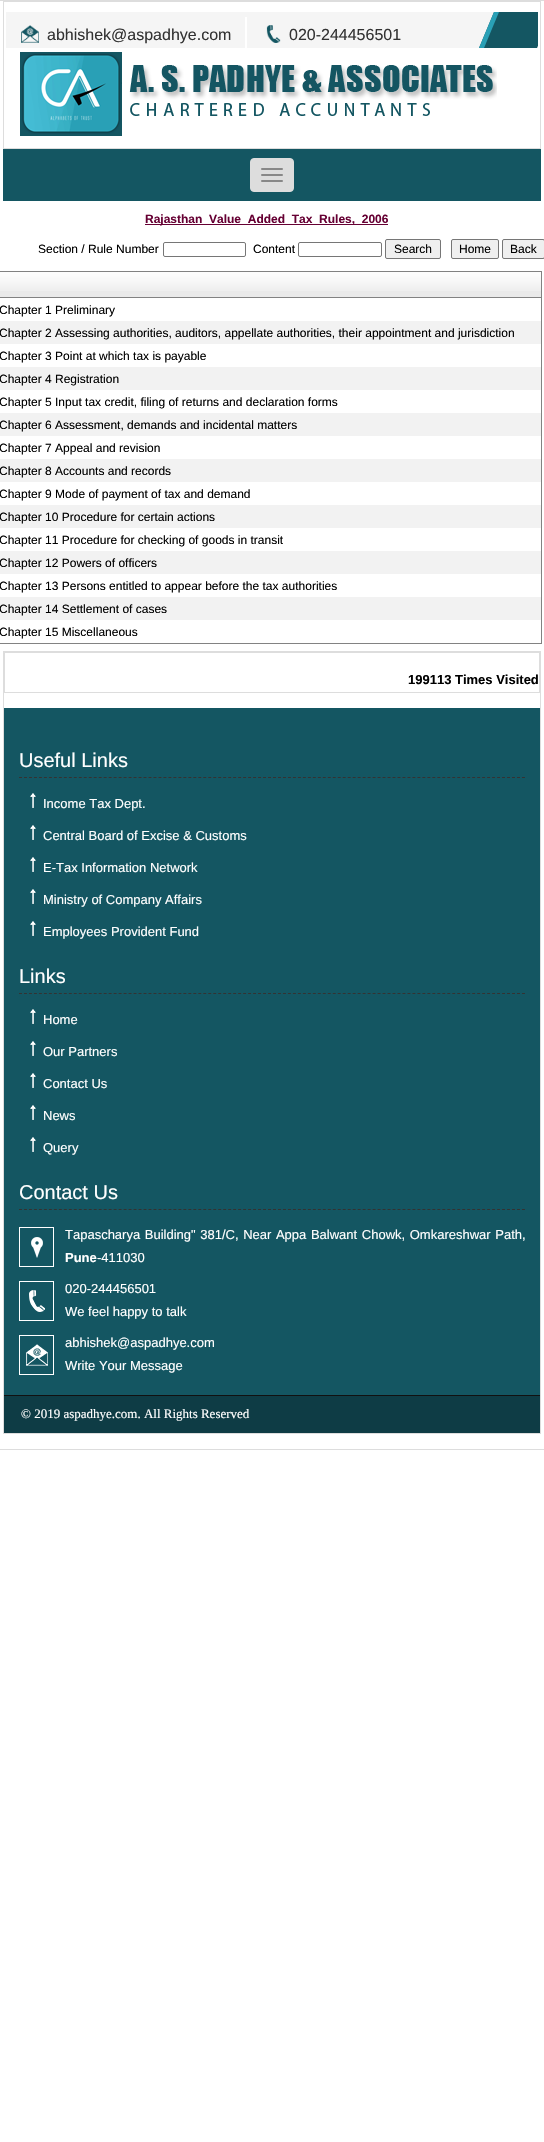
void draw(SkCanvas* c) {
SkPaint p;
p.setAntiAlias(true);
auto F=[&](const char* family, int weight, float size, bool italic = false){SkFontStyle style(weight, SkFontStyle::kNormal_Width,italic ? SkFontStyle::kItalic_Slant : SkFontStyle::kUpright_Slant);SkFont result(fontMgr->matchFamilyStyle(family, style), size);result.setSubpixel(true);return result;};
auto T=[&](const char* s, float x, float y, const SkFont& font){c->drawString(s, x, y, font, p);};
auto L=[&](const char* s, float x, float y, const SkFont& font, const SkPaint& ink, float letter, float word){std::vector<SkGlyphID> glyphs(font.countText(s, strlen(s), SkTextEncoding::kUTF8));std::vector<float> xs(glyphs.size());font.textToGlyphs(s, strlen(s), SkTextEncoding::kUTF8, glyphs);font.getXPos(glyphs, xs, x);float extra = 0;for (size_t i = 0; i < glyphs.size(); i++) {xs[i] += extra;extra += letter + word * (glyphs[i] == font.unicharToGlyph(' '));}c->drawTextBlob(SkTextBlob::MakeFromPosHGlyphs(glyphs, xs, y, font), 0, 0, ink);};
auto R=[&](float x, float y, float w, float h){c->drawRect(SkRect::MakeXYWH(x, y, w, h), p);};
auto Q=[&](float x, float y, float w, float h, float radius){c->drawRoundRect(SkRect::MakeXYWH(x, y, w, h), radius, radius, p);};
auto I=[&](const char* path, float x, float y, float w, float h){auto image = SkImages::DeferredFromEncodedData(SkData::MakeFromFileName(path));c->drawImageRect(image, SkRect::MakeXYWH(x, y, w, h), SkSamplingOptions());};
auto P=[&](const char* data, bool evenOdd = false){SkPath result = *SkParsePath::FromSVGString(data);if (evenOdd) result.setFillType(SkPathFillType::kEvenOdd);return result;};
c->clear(0xffffffff);
p.setStroke(true);
p.setStrokeWidth(1);
p.setColor(0xffdddddd);
c->drawRect(SkRect::MakeXYWH(-.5,.5,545,1449),p);
p.setStroke(false);
R(3,1,538,1);
R(540,1,1,148);
R(3,148,538,1);
R(3,1,1,148);
p.setColor(0xfff5f5f5);
R(6,12,532,36);
p.setColor(0xffffffff);
R(245,17,2,31);
I("1.png",21,25,18,18);
auto f1 = F("Liberation Sans",400,16);
p.setColor(0xff333333);
T("abhishek@aspadhye.com",47,40,f1);
I("2.png",266,25,15,18);
T("020-244456501",289,40,f1);
c->save();
c->clipRect(SkRect::MakeXYWH(6,12,532,36));
p.setColor(0xff145662);
c->drawPath(P("M494 12h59l-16 36h-58z"),p);
c->restore();
p.setColor(0xff29a0b6);
c->drawPath(P("M494 12h5l-15 36h-5z"),p);
I("3.png",20,52,477,84);
p.setColor(0xff145662);
R(3,149,538,52);
p.setColor(0xffdddddd);
c->drawRoundRect(SkRect::MakeXYWH(250.5,158.5,43,33),3.5,3.5,p);
p.setStroke(true);
c->drawRoundRect(SkRect::MakeXYWH(250.5,158.5,43,33),3.5,3.5,p);
p.setStroke(false);
p.setColor(0xff888888);
Q(261,168,22,2,1);
Q(261,174,22,2,1);
Q(261,180,22,2,1);
p.setColor(0xff660033);
R(145,224,243,1);
auto f2 = F("Liberation Sans",700,12);
T("Rajasthan_Value_Added_Tax_Rules,_2006",145,223,f2);
auto f3 = F("Liberation Sans",400,12);
p.setColor(0xff000000);
T("Section / Rule Number",38,253,f3);
p.setStroke(true);
p.setColor(0xff767676);
c->drawRoundRect(SkRect::MakeXYWH(163.5,242.5,82,14),1.5,1.5,p);
p.setStroke(false);
p.setColor(0xff000000);
T("Content",253,253,f3);
p.setStroke(true);
p.setColor(0xff767676);
c->drawRoundRect(SkRect::MakeXYWH(298.5,242.5,83,14),1.5,1.5,p);
p.setStroke(false);
p.setColor(0xffefefef);
c->drawRoundRect(SkRect::MakeXYWH(385.5,239.5,55,19),1.5,1.5,p);
p.setStroke(true);
p.setColor(0xff767676);
c->drawRoundRect(SkRect::MakeXYWH(385.5,239.5,55,19),1.5,1.5,p);
p.setStroke(false);
p.setColor(0xff000000);
T("Search",394,253,f3);
p.setColor(0xffefefef);
c->drawRoundRect(SkRect::MakeXYWH(451.5,239.5,47,19),1.5,1.5,p);
p.setStroke(true);
p.setColor(0xff767676);
c->drawRoundRect(SkRect::MakeXYWH(451.5,239.5,47,19),1.5,1.5,p);
p.setStroke(false);
p.setColor(0xff000000);
T("Home",459,253,f3);
p.setColor(0xffefefef);
c->drawRoundRect(SkRect::MakeXYWH(502.5,239.5,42,19),1.5,1.5,p);
p.setStroke(true);
p.setColor(0xff767676);
c->drawRoundRect(SkRect::MakeXYWH(502.5,239.5,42,19),1.5,1.5,p);
p.setStroke(false);
p.setColor(0xff000000);
T("Back",510,253,f3);
p.setStroke(true);
p.setColor(0xff828282);
c->drawRect(SkRect::MakeXYWH(-.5,271.5,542,372),p);
p.setStroke(false);
p.setColor(0xffeaeaea);
R(0,291,541,6);
I("4.png",0,272,541,19);
p.setColor(0xff828282);
R(0,297,541,1);
p.setColor(0xff000000);
T("Chapter 1 Preliminary",-1,314,f3);
p.setColor(0xfff2f2f2);
R(0,321,541,23);
p.setColor(0xff000000);
T("Chapter 2 Assessing authorities, auditors, appellate authorities, their appointment and jurisdiction",-1,337,f3);
T("Chapter 3 Point at which tax is payable",-1,360,f3);
p.setColor(0xfff2f2f2);
R(0,367,541,23);
p.setColor(0xff000000);
T("Chapter 4 Registration",-1,383,f3);
T("Chapter 5 Input tax credit, filing of returns and declaration forms",-1,406,f3);
p.setColor(0xfff2f2f2);
R(0,413,541,23);
p.setColor(0xff000000);
T("Chapter 6 Assessment, demands and incidental matters",-1,429,f3);
T("Chapter 7 Appeal and revision",-1,452,f3);
p.setColor(0xfff2f2f2);
R(0,459,541,23);
p.setColor(0xff000000);
T("Chapter 8 Accounts and records",-1,475,f3);
T("Chapter 9 Mode of payment of tax and demand",-1,498,f3);
p.setColor(0xfff2f2f2);
R(0,505,541,23);
p.setColor(0xff000000);
T("Chapter 10 Procedure for certain actions",-1,521,f3);
T("Chapter 11 Procedure for checking of goods in transit",-1,544,f3);
p.setColor(0xfff2f2f2);
R(0,551,541,23);
p.setColor(0xff000000);
T("Chapter 12 Powers of officers",-1,567,f3);
T("Chapter 13 Persons entitled to appear before the tax authorities",-1,590,f3);
p.setColor(0xfff2f2f2);
R(0,597,541,23);
p.setColor(0xff000000);
T("Chapter 14 Settlement of cases",-1,613,f3);
T("Chapter 15 Miscellaneous",-1,636,f3);
p.setColor(0xffdddddd);
R(3,651,538,1);
R(540,651,1,783);
R(3,1433,538,1);
R(3,651,1,783);
R(4,652,536,1);
R(539,652,1,41);
R(4,692,536,1);
R(4,652,1,41);
auto f4 = F("Liberation Sans",700,13);
p.setColor(0xff000000);
T("199113 Times Visited",408,684,f4);
p.setColor(0xff145662);
R(4,708,536,687);
p.setStroke(true);
p.setColor(0xff333333);
p.setPathEffect(SkDashPathEffect::Make({{3,1.98f}}, 0));
c->drawPath(P("M19 777.5h506"),p);
p.setPathEffect(nullptr);
auto f5 = F("Liberation Sans",400,20);
p.setStroke(false);
p.setColor(0xffffffff);
T("Useful Links",19,767,f5);
I("5.png",30,793,6,15);
auto f6 = F("Liberation Sans",400,13);
T("Income Tax Dept.",43,808,f6);
I("5.png",30,825,6,15);
T("Central Board of Excise & Customs",43,840,f6);
I("5.png",30,857,6,15);
T("E-Tax Information Network",43,872,f6);
I("5.png",30,889,6,15);
T("Ministry of Company Affairs",43,904,f6);
I("5.png",30,921,6,15);
T("Employees Provident Fund",43,936,f6);
p.setStroke(true);
p.setColor(0xff333333);
p.setPathEffect(SkDashPathEffect::Make({{3,1.98f}}, 0));
c->drawPath(P("M19 993.5h506"),p);
p.setPathEffect(nullptr);
p.setStroke(false);
p.setColor(0xffffffff);
T("Links",19,983,f5);
I("5.png",30,1009,6,15);
T("Home",43,1024,f6);
I("5.png",30,1041,6,15);
T("Our Partners",43,1056,f6);
I("5.png",30,1073,6,15);
T("Contact Us",43,1088,f6);
I("5.png",30,1105,6,15);
T("News",43,1120,f6);
I("5.png",30,1137,6,15);
T("Query",43,1152,f6);
p.setStroke(true);
p.setColor(0xff333333);
p.setPathEffect(SkDashPathEffect::Make({{3,1.98f}}, 0));
c->drawPath(P("M19 1209.5h506"),p);
p.setPathEffect(nullptr);
p.setStroke(false);
p.setColor(0xffffffff);
T("Contact Us",19,1199,f5);
p.setStroke(true);
c->drawRect(SkRect::MakeXYWH(19.5,1227.5,34,39),p);
I("6.png",31,1237,12,21);
p.setStroke(false);
L("Tapascharya Building\" 381/C, Near Appa Balwant Chowk, Omkareshwar Path,",65,1239,f6,p,0,1);
T("Pune",65,1262,f4);
T("-411030",97,1262,f6);
p.setStroke(true);
c->drawRect(SkRect::MakeXYWH(19.5,1281.5,34,39),p);
I("7.png",29,1290,16,22);
p.setStroke(false);
T("020-244456501",65,1293,f6);
T("We feel happy to talk",65,1316,f6);
p.setStroke(true);
c->drawRect(SkRect::MakeXYWH(19.5,1335.5,34,39),p);
I("8.png",26,1344,22,22);
p.setStroke(false);
T("abhishek@aspadhye.com",65,1347,f6);
T("Write Your Message",65,1370,f6);
p.setColor(0xff0e3c45);
R(4,1396,536,37);
p.setColor(0xff111111);
R(4,1395,536,1);
auto f7 = F("Liberation Serif",400,13);
p.setColor(0xffffffff);
T("© 2019 aspadhye.com. All Rights Reserved",21,1418,f7);
}
